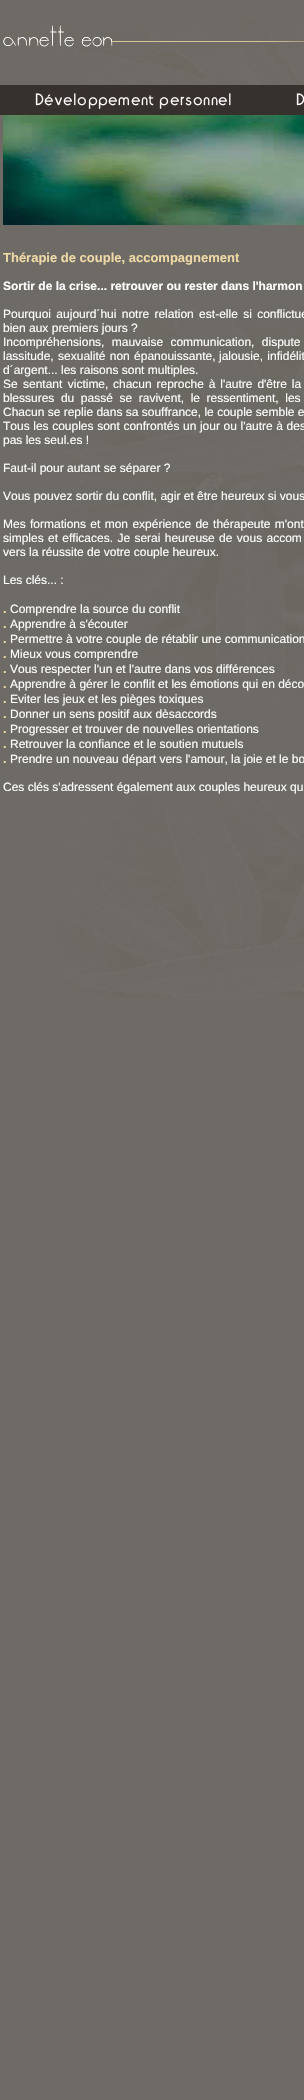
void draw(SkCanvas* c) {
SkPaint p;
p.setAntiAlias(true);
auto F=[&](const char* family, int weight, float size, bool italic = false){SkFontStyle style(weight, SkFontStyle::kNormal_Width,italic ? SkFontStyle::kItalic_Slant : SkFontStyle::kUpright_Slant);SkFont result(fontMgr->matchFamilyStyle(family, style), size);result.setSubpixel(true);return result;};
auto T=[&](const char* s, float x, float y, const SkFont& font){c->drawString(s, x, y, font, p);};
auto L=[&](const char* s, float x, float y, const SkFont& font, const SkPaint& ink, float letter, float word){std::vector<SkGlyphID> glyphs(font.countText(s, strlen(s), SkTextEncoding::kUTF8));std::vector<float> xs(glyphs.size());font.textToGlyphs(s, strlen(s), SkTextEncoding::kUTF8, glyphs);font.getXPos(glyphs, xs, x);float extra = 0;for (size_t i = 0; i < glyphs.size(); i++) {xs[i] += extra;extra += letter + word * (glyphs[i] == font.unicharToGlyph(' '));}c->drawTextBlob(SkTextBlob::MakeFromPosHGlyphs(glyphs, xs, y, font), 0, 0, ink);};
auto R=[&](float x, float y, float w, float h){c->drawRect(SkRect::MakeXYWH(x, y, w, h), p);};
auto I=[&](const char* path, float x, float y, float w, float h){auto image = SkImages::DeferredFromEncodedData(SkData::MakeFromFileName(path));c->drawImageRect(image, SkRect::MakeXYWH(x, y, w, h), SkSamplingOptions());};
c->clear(0xff6e6b66);
I("1.png",3,22,301,63);
p.setColor(0xff37312d);
R(0,85,304,30);
I("2.png",35,93,196,16);
I("3.png",296,93,8,13);
I("4.png",3,115,301,110);
I("5.png",50,306,254,691);
auto f1 = F("Liberation Sans",700,13);
p.setColor(0xffefd9a6);
T("Thérapie de couple, accompagnement",3,262,f1);
auto f2 = F("Liberation Sans",700,12);
p.setColor(0xffffffff);
T("Sortir de la crise... retrouver ou rester dans l'harmon",3,290,f2);
auto f3 = F("Liberation Sans",400,12);
L("Pourquoi aujourd´hui notre relation est-elle si conflictue",3,318,f3,p,0,2);
T("bien aux premiers jours ?",3,332,f3);
L("Incompréhensions, mauvaise communication, dispute",3,346,f3,p,0,4);
L("lassitude, sexualité non épanouissante,",3,360,f3,p,0,1);
L("jalousie, infidélit",219,360,f3,p,0,1);
T("d´argent... les raisons sont multiples.",3,374,f3);
L("Se sentant victime,",3,388,f3,p,0,2);
L("chacun reproche à l'autre d'être la",113,388,f3,p,0,1.5);
L("blessures du passé se ravivent, le ressentiment, les",3,402,f3,p,0,3.25);
T("Chacun se replie dans sa souffrance, le couple semble e",3,416,f3);
L("Tous les couples sont confrontés un jour ou l'autre à des",3,430,f3,p,0,.25);
T("pas les seul.es !",3,444,f3);
T("Faut-il pour autant se séparer ?",3,472,f3);
T("Vous pouvez sortir du conflit, agir et être heureux si vous",3,500,f3);
L("Mes formations et mon expérience de thérapeute m'ont",3,528,f3,p,0,1);
L("simples et efficaces. Je serai heureuse de vous accom",3,542,f3,p,0,1);
T("vers la réussite de votre couple heureux.",3,556,f3);
T("Les clés... :",3,584,f3);
p.setColor(0xffefd9a6);
T(".",3,613,f1);
p.setColor(0xffffffff);
T("Comprendre la source du conflit",10,613,f3);
p.setColor(0xffefd9a6);
T(".",3,628,f1);
p.setColor(0xffffffff);
T("Apprendre à s'écouter",10,628,f3);
p.setColor(0xffefd9a6);
T(".",3,643,f1);
p.setColor(0xffffffff);
T("Permettre à votre couple de rétablir une communication",10,643,f3);
p.setColor(0xffefd9a6);
T(".",3,658,f1);
p.setColor(0xffffffff);
T("Mieux vous comprendre",10,658,f3);
p.setColor(0xffefd9a6);
T(".",3,673,f1);
p.setColor(0xffffffff);
T("Vous respecter l'un et l'autre dans vos différences",10,673,f3);
p.setColor(0xffefd9a6);
T(".",3,688,f1);
p.setColor(0xffffffff);
T("Apprendre à gérer le conflit et les émotions qui en déco",10,688,f3);
p.setColor(0xffefd9a6);
T(".",3,703,f1);
p.setColor(0xffffffff);
T("Eviter les jeux et les pièges toxiques",10,703,f3);
p.setColor(0xffefd9a6);
T(".",3,718,f1);
p.setColor(0xffffffff);
T("Donner un sens positif aux dèsaccords",10,718,f3);
p.setColor(0xffefd9a6);
T(".",3,733,f1);
p.setColor(0xffffffff);
T("Progresser et trouver de nouvelles orientations",10,733,f3);
p.setColor(0xffefd9a6);
T(".",3,748,f1);
p.setColor(0xffffffff);
T("Retrouver la confiance et le soutien mutuels",10,748,f3);
p.setColor(0xffefd9a6);
T(".",3,763,f1);
p.setColor(0xffffffff);
T("Prendre un nouveau départ vers l'amour, la joie et le bo",10,763,f3);
T("Ces clés s'adressent également aux couples heureux qu",3,791,f3);
}
